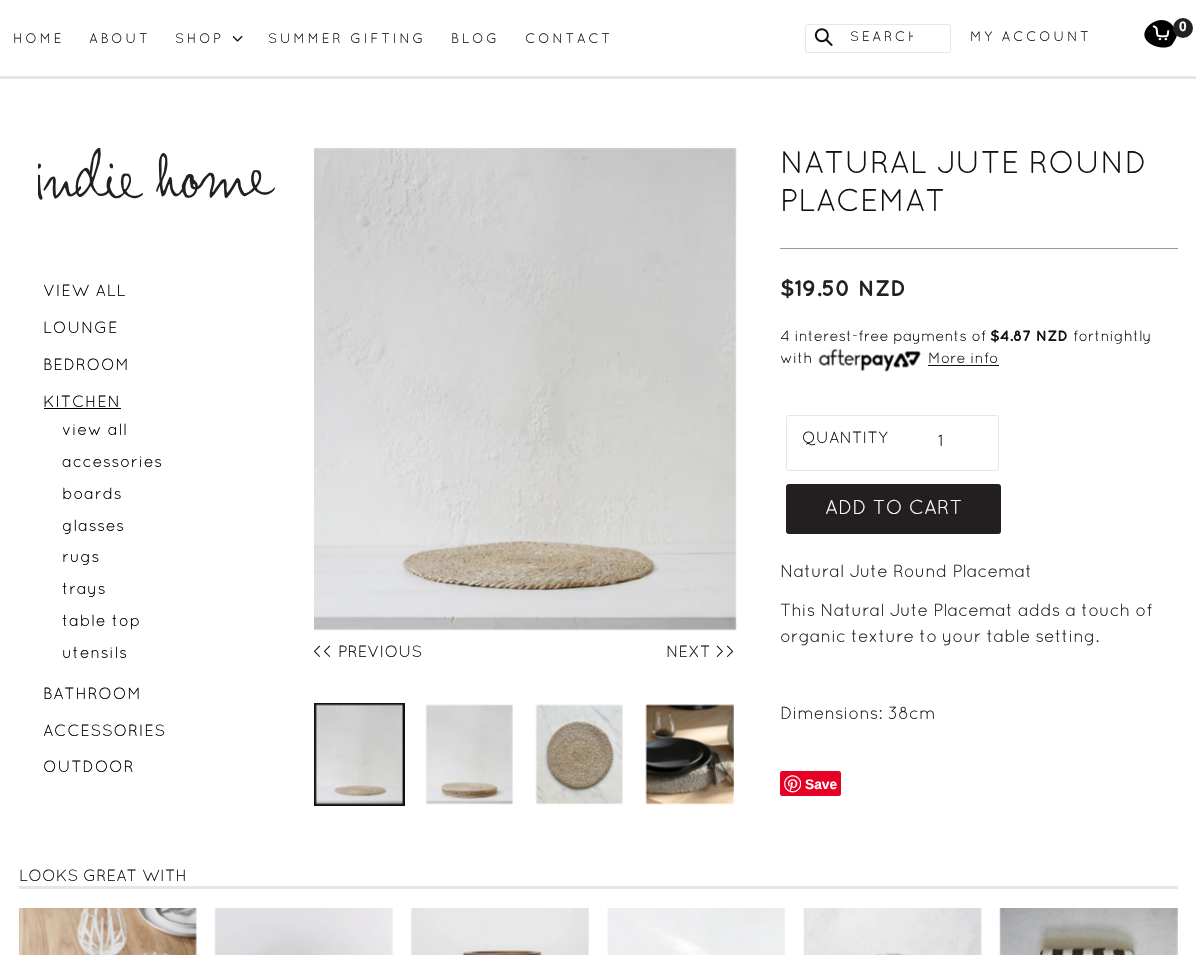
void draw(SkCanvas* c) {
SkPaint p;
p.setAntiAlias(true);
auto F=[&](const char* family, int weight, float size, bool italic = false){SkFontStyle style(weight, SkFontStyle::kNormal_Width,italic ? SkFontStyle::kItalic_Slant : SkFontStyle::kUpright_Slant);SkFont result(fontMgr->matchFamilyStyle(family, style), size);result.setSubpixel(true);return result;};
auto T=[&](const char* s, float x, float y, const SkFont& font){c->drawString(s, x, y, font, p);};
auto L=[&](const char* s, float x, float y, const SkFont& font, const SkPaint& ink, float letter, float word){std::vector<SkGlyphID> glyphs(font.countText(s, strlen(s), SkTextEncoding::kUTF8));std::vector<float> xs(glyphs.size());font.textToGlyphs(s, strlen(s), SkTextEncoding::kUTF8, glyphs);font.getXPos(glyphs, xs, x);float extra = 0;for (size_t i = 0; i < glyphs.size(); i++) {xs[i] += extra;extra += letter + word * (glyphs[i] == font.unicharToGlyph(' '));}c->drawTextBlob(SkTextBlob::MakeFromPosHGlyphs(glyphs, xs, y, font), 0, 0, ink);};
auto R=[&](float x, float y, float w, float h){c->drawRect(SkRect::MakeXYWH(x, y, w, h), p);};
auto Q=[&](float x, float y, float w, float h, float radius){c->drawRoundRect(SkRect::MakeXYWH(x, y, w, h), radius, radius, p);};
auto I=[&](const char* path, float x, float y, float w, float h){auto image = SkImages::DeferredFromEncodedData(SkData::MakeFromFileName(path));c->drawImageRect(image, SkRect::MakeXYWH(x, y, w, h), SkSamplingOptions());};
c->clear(0xffffffff);
p.setColor(0xffe6e6e6);
R(0,76,1196,3);
auto f1 = F("Quicksand",400,13.75);
p.setColor(0xff111111);
L("HOME",13,43,f1,p,2.5,0);
L("ABOUT",89,43,f1,p,2.5,0);
L("SHOP",175,43,f1,p,2.5,0);
I("1.png",233,35,10,7);
L("SUMMER GIFTING",268,43,f1,p,2.5,0);
L("BLOG",451,43,f1,p,2.5,0);
L("CONTACT",525,43,f1,p,2.5,0);
I("2.png",1144,20,33,28);
p.setColor(0xff222222);
c->drawCircle(1183,28,10,p);
auto f2 = F("Liberation Sans",700,13.75);
p.setColor(0xffffffff);
T("0",1179,31,f2);
p.setStroke(true);
p.setStrokeWidth(1);
p.setColor(0xffe6e6e6);
c->drawRoundRect(SkRect::MakeXYWH(805.5,24.5,145,28),2,2,p);
I("3.png",814,28,19,18);
c->save();
c->clipRect(SkRect::MakeXYWH(850,31,63,13));
p.setStroke(false);
p.setColor(0xff111111);
L("SEARCH",850,41,f1,p,2.5,0);
c->restore();
L("MY ACCOUNT",970,41,f1,p,2.5,0);
I("4.png",38,148,237,52);
auto f3 = F("Quicksand",400,16.25);
p.setColor(0xff000000);
L("VIEW ALL",43,296,f3,p,.6,0);
L("LOUNGE",43,333,f3,p,.6,0);
L("BEDROOM",43,370,f3,p,.6,0);
L("KITCHEN",43,407,f3,p,.6,0);
R(44,408,77,1);
L("view all",62,435,f3,p,.6,0);
L("accessories",62,467,f3,p,.6,0);
L("boards",62,499,f3,p,.6,0);
L("glasses",62,531,f3,p,.6,0);
L("rugs",62,562,f3,p,.6,0);
L("trays",62,594,f3,p,.6,0);
L("table top",62,626,f3,p,.6,0);
L("utensils",62,658,f3,p,.6,0);
L("BATHROOM",43,699,f3,p,.6,0);
L("ACCESSORIES",43,736,f3,p,.6,0);
L("OUTDOOR",43,772,f3,p,.6,0);
I("5.png",314,148,423,483);
p.setColor(0xff111111);
T("<< PREVIOUS",313,657,f3);
T("NEXT >>",666,657,f3);
p.setStroke(true);
p.setStrokeWidth(3);
c->drawRect(SkRect::MakeXYWH(315.5,704.5,88,100),p);
I("6.png",315,704,88,101);
I("7.png",425,704,88,101);
I("8.png",535,704,88,101);
I("9.png",645,704,89,101);
p.setStroke(false);
p.setColor(0xff999999);
R(780,248,398,1);
auto f4 = F("Quicksand",400,31.25);
p.setColor(0xff111111);
T("NATURAL JUTE ROUND",780,173,f4);
T("PLACEMAT",780,211,f4);
auto f5 = F("Quicksand",700,22.5);
p.setColor(0xff222222);
T("$19.50 NZD",780,296,f5);
auto f6 = F("Quicksand",400,15);
p.setColor(0xff111111);
T("4 interest-free payments of",780,341,f6);
auto f7 = F("Quicksand",700,15);
T("$4.87 NZD",990,341,f7);
T("fortnightly",1073,341,f6);
T("with",780,363,f6);
I("10.png",818,348,103,24);
T("More info",928,363,f6);
R(928,365,71,1);
p.setStroke(true);
p.setStrokeWidth(1);
p.setColor(0xffe6e6e6);
c->drawRoundRect(SkRect::MakeXYWH(786.5,415.5,212,55),2,2,p);
p.setStroke(false);
p.setColor(0xff111111);
T("QUANTITY",802,443,f3);
p.setColor(0xff000000);
T("1",938,446,f3);
p.setColor(0xff231f20);
c->drawRoundRect(SkRect::MakeXYWH(786.5,484.5,214,49),2,2,p);
p.setStroke(true);
c->drawRoundRect(SkRect::MakeXYWH(786.5,484.5,214,49),2,2,p);
auto f8 = F("Quicksand",400,20);
p.setStroke(false);
p.setColor(0xffffffff);
T("ADD TO CART",825,514,f8);
auto f9 = F("Quicksand",400,17.5);
p.setColor(0xff222222);
L("Natural Jute Round Placemat",780,577,f9,p,-.1,0);
L("This Natural Jute Placemat adds a touch of",780,616,f9,p,-.1,0);
L("organic texture to your table setting.",780,642,f9,p,-.1,0);
L("Dimensions: 38cm",780,719,f9,p,-.1,0);
p.setColor(0xffe60023);
Q(780,771,61,25,2.5);
I("11.png",784,775,17,18);
p.setColor(0xffffffff);
T("Save",805,789,f2);
p.setColor(0xffe6e6e6);
R(19,886,1159,3);
p.setColor(0xff111111);
T("LOOKS GREAT WITH",19,881,f3);
I("12.png",19,908,178,47);
I("13.png",214,908,179,47);
I("14.png",410,908,179,47);
I("15.png",607,908,178,47);
I("16.png",803,908,179,47);
I("17.png",999,908,179,47);
}
